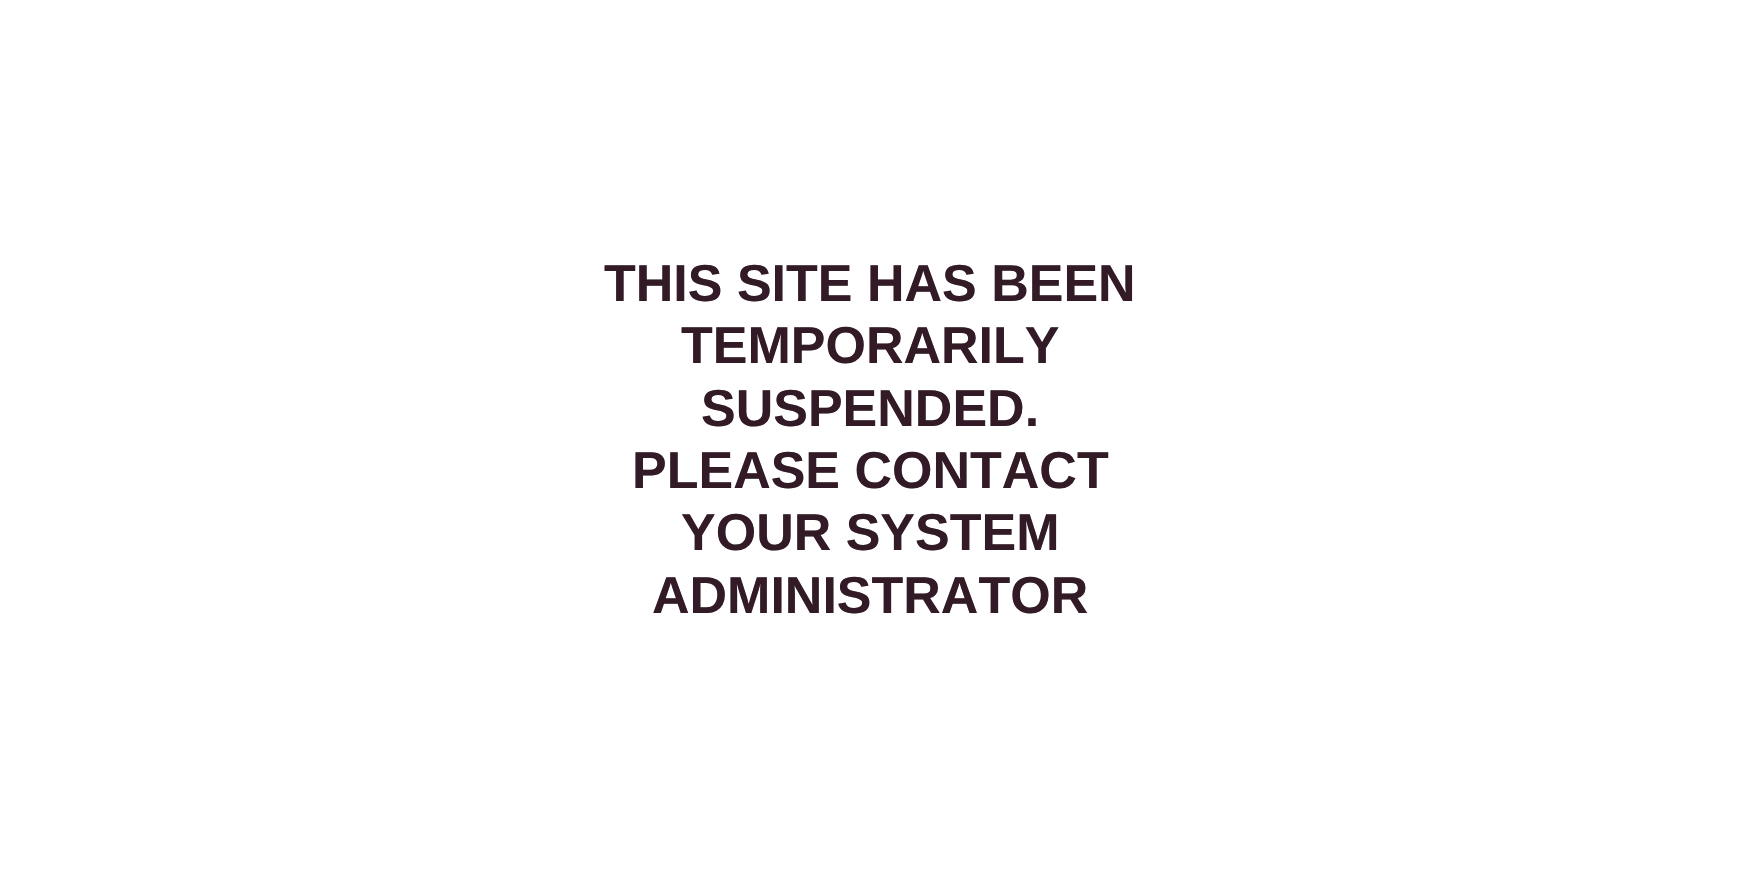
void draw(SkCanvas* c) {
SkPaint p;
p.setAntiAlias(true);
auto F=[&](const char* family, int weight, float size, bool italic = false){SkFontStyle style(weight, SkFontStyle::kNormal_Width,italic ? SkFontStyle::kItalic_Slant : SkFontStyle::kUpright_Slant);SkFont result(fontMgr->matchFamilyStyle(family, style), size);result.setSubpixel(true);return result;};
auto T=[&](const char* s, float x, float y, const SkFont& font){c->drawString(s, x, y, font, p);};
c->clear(0xffffffff);
auto f1 = F("Liberation Sans",700,52);
p.setColor(0xff321b26);
T("THIS SITE HAS BEEN",604,301,f1);
T("TEMPORARILY",681,363,f1);
T("SUSPENDED.",701,426,f1);
T("PLEASE CONTACT",632,488,f1);
T("YOUR SYSTEM",681,550,f1);
T("ADMINISTRATOR",652,613,f1);
}
